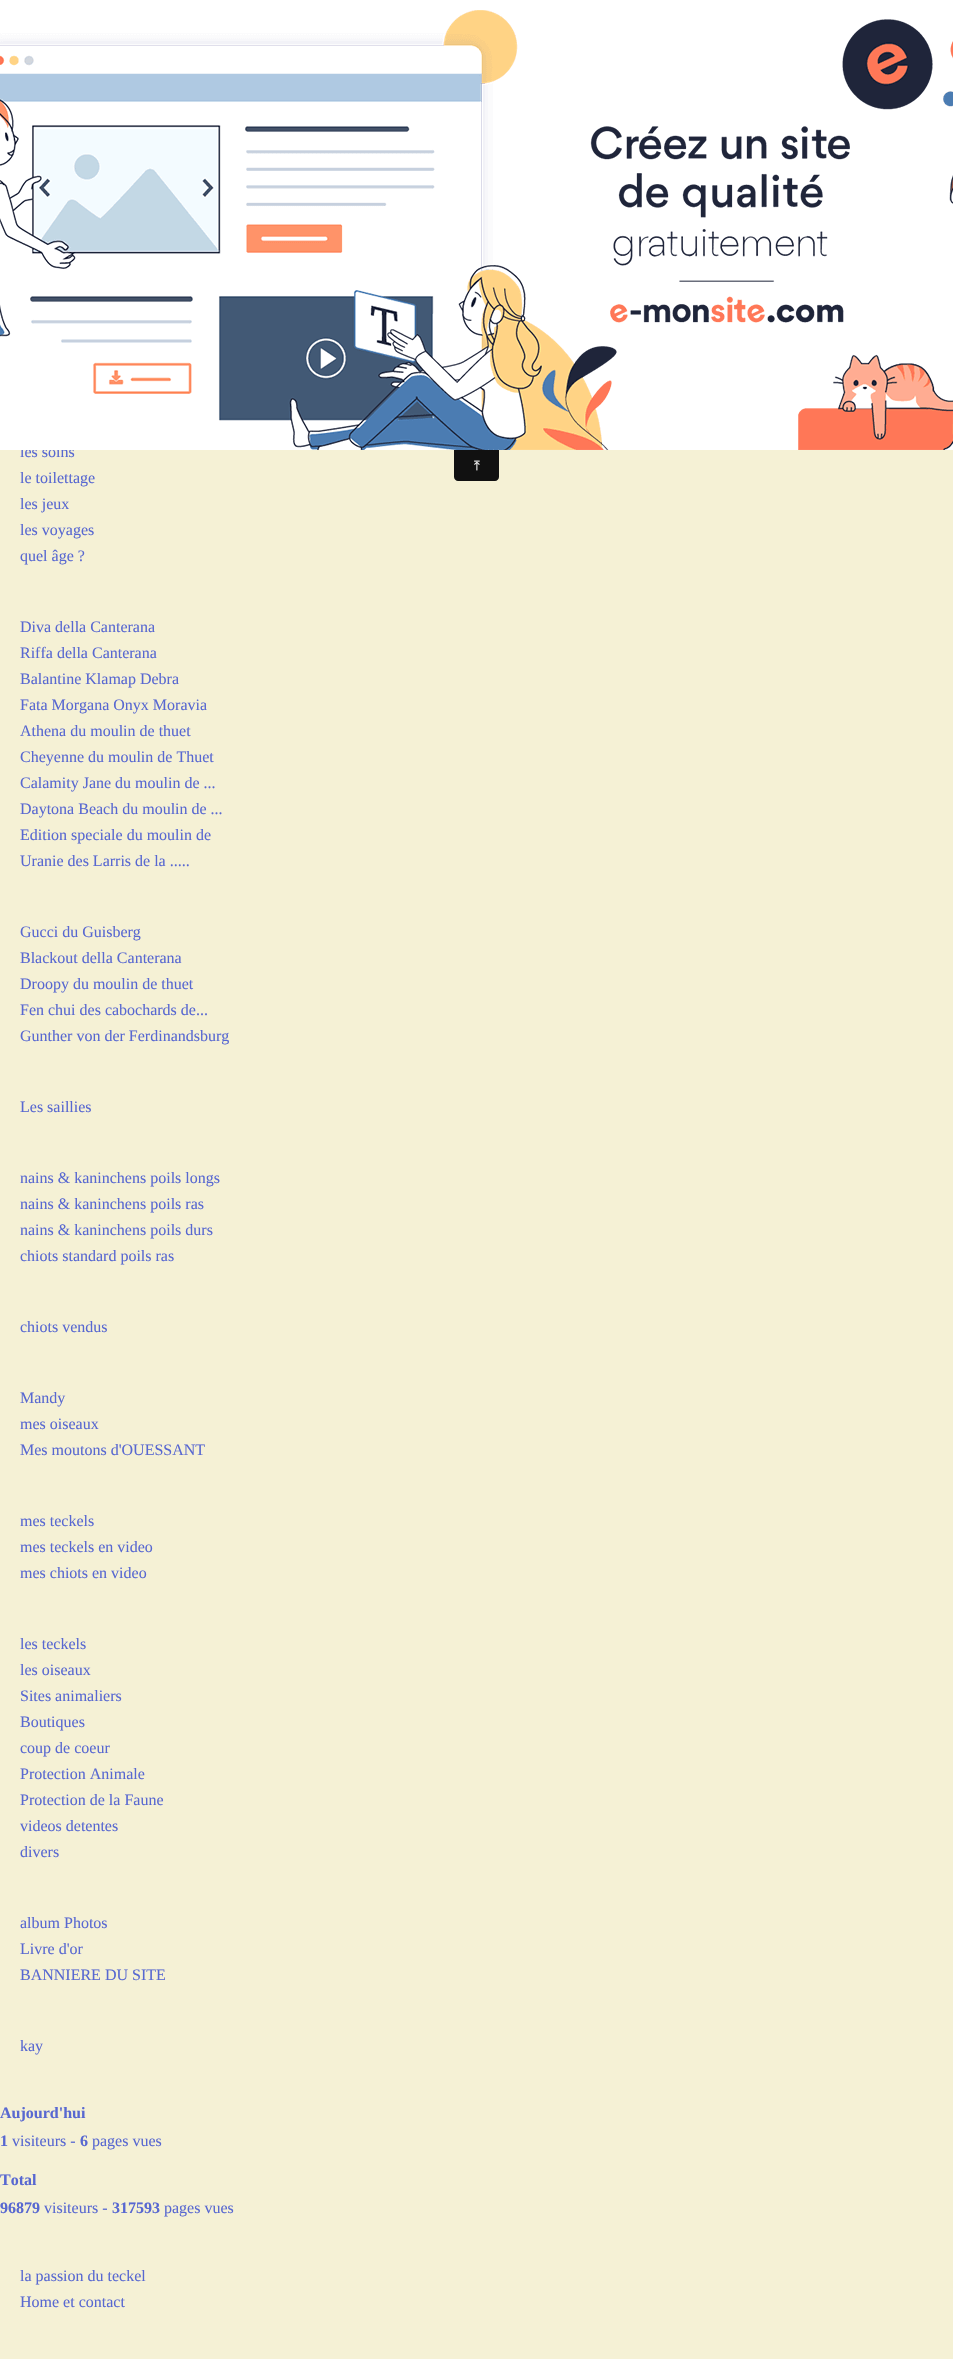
void draw(SkCanvas* c) {
SkPaint p;
p.setAntiAlias(true);
auto F=[&](const char* family, int weight, float size, bool italic = false){SkFontStyle style(weight, SkFontStyle::kNormal_Width,italic ? SkFontStyle::kItalic_Slant : SkFontStyle::kUpright_Slant);SkFont result(fontMgr->matchFamilyStyle(family, style), size);result.setSubpixel(true);return result;};
auto T=[&](const char* s, float x, float y, const SkFont& font){c->drawString(s, x, y, font, p);};
auto R=[&](float x, float y, float w, float h){c->drawRect(SkRect::MakeXYWH(x, y, w, h), p);};
auto I=[&](const char* path, float x, float y, float w, float h){auto image = SkImages::DeferredFromEncodedData(SkData::MakeFromFileName(path));c->drawImageRect(image, SkRect::MakeXYWH(x, y, w, h), SkSamplingOptions());};
auto P=[&](const char* data, bool evenOdd = false){SkPath result = *SkParsePath::FromSVGString(data);if (evenOdd) result.setFillType(SkPathFillType::kEvenOdd);return result;};
c->clear(0xfff5f1d5);
auto f1 = F("Liberation Serif",400,16);
p.setColor(0xff5868d1);
T("les soins",20,457,f1);
T("le toilettage",20,483,f1);
T("les jeux",20,509,f1);
T("les voyages",20,535,f1);
T("quel âge ?",20,561,f1);
T("Diva della Canterana",20,632,f1);
T("Riffa della Canterana",20,658,f1);
T("Balantine Klamap Debra",20,684,f1);
T("Fata Morgana Onyx Moravia",20,710,f1);
T("Athena du moulin de thuet",20,736,f1);
T("Cheyenne du moulin de Thuet",20,762,f1);
T("Calamity Jane du moulin de ...",20,788,f1);
T("Daytona Beach du moulin de ...",20,814,f1);
T("Edition speciale du moulin de",20,840,f1);
T("Uranie des Larris de la .....",20,866,f1);
T("Gucci du Guisberg",20,937,f1);
T("Blackout della Canterana",20,963,f1);
T("Droopy du moulin de thuet",20,989,f1);
T("Fen chui des cabochards de...",20,1015,f1);
T("Gunther von der Ferdinandsburg",20,1041,f1);
T("Les saillies",20,1112,f1);
T("nains & kaninchens poils longs",20,1183,f1);
T("nains & kaninchens poils ras",20,1209,f1);
T("nains & kaninchens poils durs",20,1235,f1);
T("chiots standard poils ras",20,1261,f1);
T("chiots vendus",20,1332,f1);
T("Mandy",20,1403,f1);
T("mes oiseaux",20,1429,f1);
T("Mes moutons d'OUESSANT",20,1455,f1);
T("mes teckels",20,1526,f1);
T("mes teckels en video",20,1552,f1);
T("mes chiots en video",20,1578,f1);
T("les teckels",20,1649,f1);
T("les oiseaux",20,1675,f1);
T("Sites animaliers",20,1701,f1);
T("Boutiques",20,1727,f1);
T("coup de coeur",20,1753,f1);
T("Protection Animale",20,1779,f1);
T("Protection de la Faune",20,1805,f1);
T("videos detentes",20,1831,f1);
T("divers",20,1857,f1);
T("album Photos",20,1928,f1);
T("Livre d'or",20,1954,f1);
T("BANNIERE DU SITE",20,1980,f1);
T("kay",20,2051,f1);
auto f2 = F("Liberation Serif",700,16);
T("Aujourd'hui",0,2118,f2);
T("1",0,2146,f2);
T("visiteurs -",12,2146,f1);
T("6",80,2146,f2);
T("pages vues",92,2146,f1);
T("Total",0,2185,f2);
T("96879",0,2213,f2);
T("visiteurs -",44,2213,f1);
T("317593",112,2213,f2);
T("pages vues",164,2213,f1);
T("la passion du teckel",20,2281,f1);
T("Home et contact",20,2307,f1);
p.setColor(0xffffffff);
R(0,0,953,450);
I("1.png",0,10,953,440);
p.setColor(0xff111111);
c->drawPath(P("M454 450h45v27c0 2-2 4-4 4h-37c-2 0-4-2-4-4z"),p);
auto f3 = F("FreeSerif",400,13);
p.setColor(0xffffffff);
T("⤒",474,470,f3);
}
